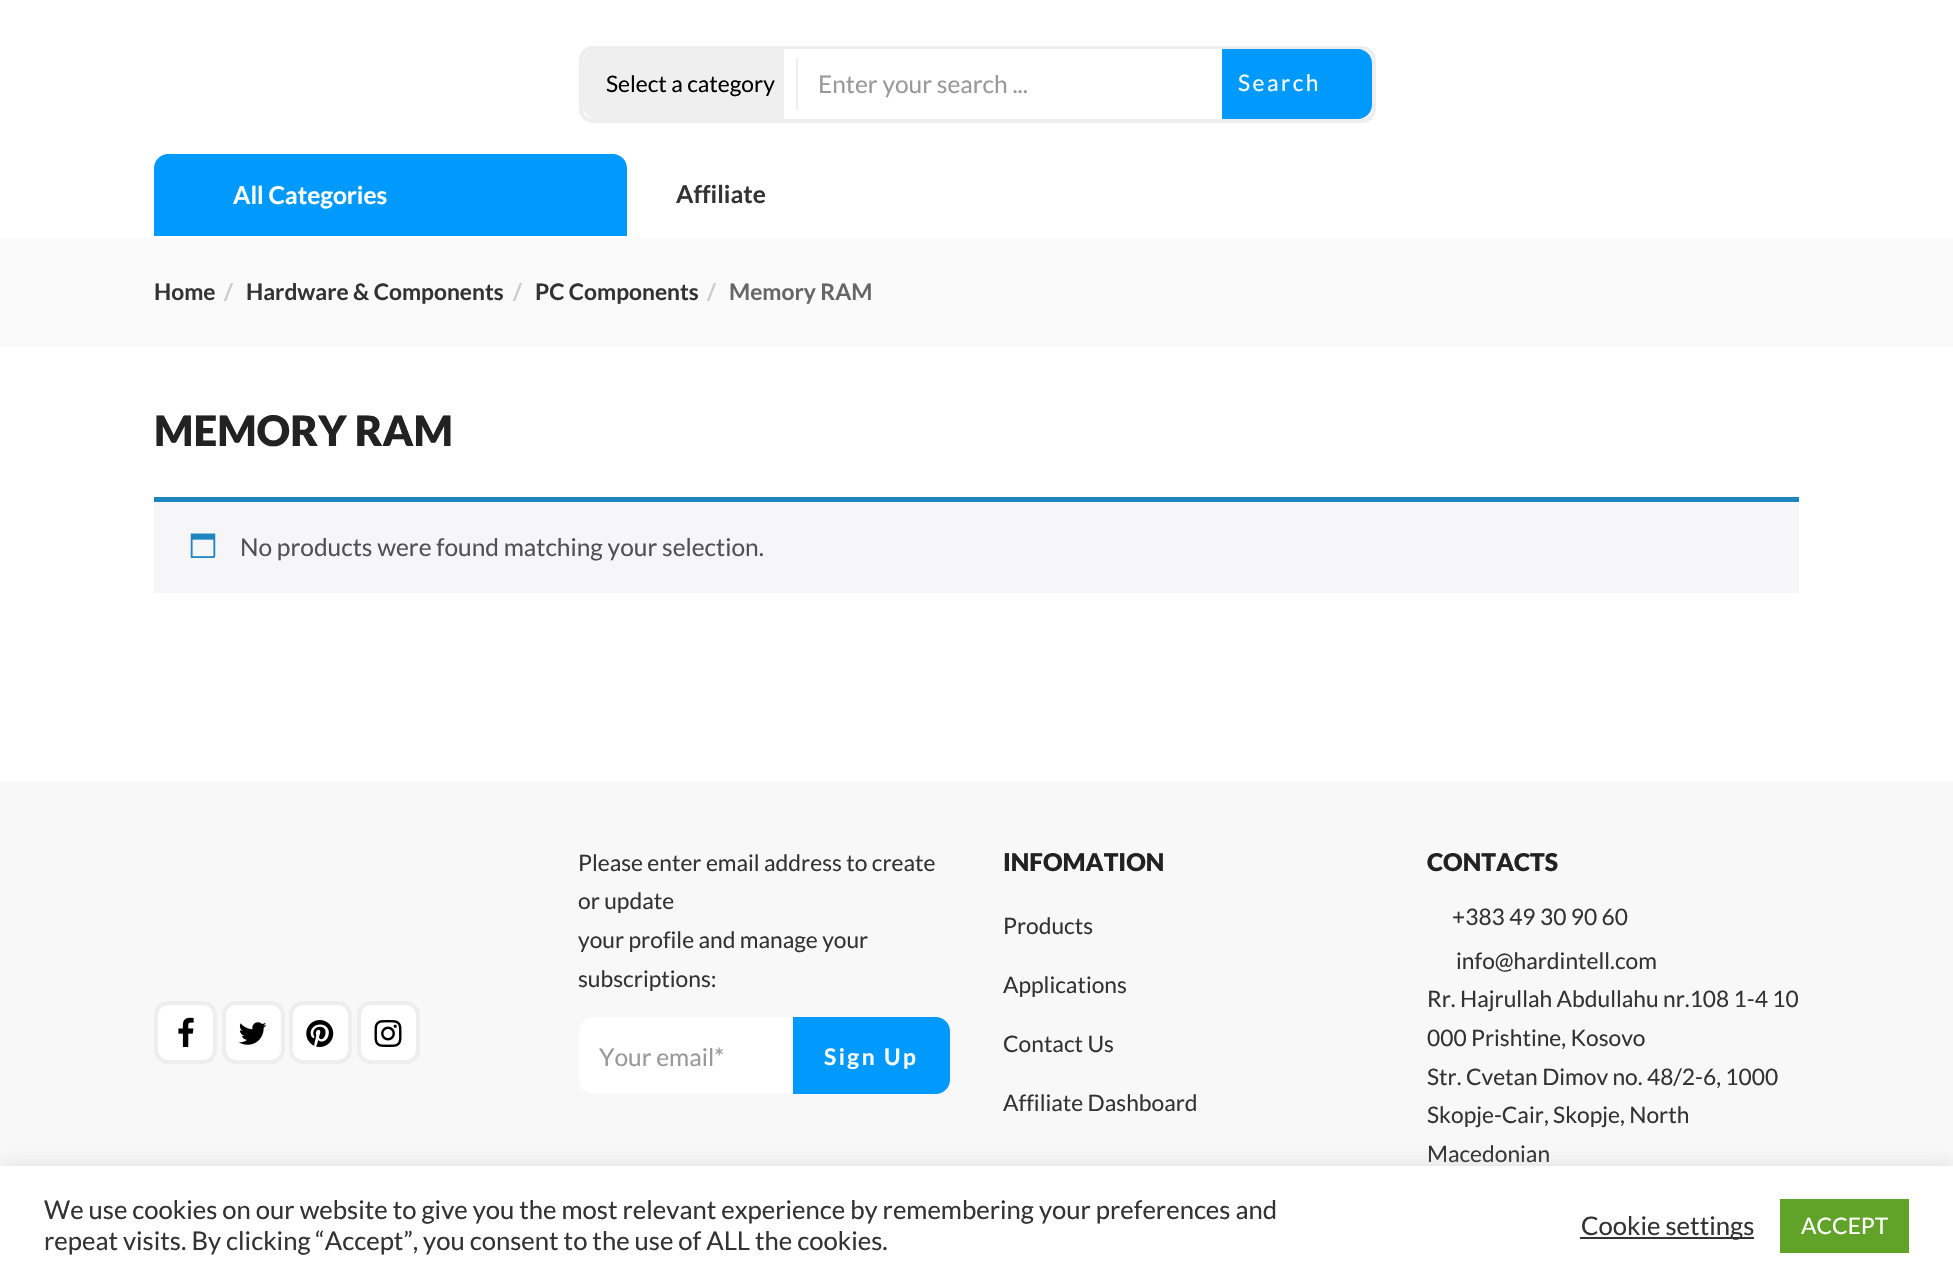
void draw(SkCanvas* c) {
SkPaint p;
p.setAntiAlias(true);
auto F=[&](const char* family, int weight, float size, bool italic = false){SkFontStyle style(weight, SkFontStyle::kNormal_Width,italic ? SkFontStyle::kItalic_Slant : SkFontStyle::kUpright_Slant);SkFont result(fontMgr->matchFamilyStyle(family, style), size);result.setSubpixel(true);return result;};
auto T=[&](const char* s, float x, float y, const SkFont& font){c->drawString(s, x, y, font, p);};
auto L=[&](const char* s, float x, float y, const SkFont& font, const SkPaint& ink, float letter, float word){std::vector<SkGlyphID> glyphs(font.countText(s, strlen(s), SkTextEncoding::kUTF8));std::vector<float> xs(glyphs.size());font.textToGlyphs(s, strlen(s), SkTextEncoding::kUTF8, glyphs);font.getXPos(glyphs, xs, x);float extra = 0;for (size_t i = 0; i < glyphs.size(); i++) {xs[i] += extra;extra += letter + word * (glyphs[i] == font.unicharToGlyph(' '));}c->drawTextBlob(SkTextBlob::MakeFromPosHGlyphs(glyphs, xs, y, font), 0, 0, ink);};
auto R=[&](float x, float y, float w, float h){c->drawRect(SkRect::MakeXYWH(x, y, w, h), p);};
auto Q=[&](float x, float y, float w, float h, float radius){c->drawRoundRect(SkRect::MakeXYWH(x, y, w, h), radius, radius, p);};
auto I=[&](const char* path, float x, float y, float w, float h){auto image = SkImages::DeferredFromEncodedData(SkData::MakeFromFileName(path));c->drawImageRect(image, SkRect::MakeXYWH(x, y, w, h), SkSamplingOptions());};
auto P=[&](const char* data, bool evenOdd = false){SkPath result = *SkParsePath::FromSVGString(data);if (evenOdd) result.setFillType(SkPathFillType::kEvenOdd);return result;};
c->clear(0xffffffff);
p.setStroke(true);
p.setStrokeWidth(4);
p.setColor(0xffeeeeee);
c->drawRoundRect(SkRect::MakeXYWH(581,48,793,73),12,12,p);
p.setStroke(false);
p.setColor(0xffefefef);
Q(583,49,387,70,14);
auto f1 = F("Lato",400,22.75);
p.setColor(0xff000000);
T("Select a category",606,92,f1);
p.setColor(0xffffffff);
R(784,49,438,70);
p.setColor(0xffeeeeee);
R(796,58,2,52);
auto f2 = F("Lato",400,24.5);
p.setColor(0xff999999);
T("Enter your search ...",818,93,f2);
p.setColor(0xff009aff);
c->drawPath(P("M1222 49h136c7.5 0 14 6.5 14 14v42c0 7.5-6.5 14-14 14h-136z"),p);
p.setColor(0xffffffff);
L("Search",1238,91,f1,p,2.5,0);
p.setColor(0xff009aff);
c->drawPath(P("M168 154h445c7.5 0 14 6.5 14 14v68h-473v-68c0-7.5 6.5-14 14-14z"),p);
auto f3 = F("Lato",700,24.5);
p.setColor(0xffffffff);
T("All Categories",233,204,f3);
p.setColor(0xff333333);
T("Affiliate",676,203,f3);
p.setColor(0xfffafafa);
R(0,238,1953,109);
auto f4 = F("Lato",700,22.75);
p.setColor(0xff333333);
T("Home",154,300,f4);
p.setColor(0xffcccccc);
T("/",224,300,f4);
p.setColor(0xff333333);
T("Hardware & Components",246,300,f4);
p.setColor(0xffcccccc);
T("/",513,300,f4);
p.setColor(0xff333333);
T("PC Components",535,300,f4);
p.setColor(0xffcccccc);
T("/",707,300,f4);
p.setColor(0xff666666);
T("Memory RAM",729,300,f4);
auto f5 = F("Lato",900,42);
p.setColor(0xff222222);
T("MEMORY RAM",154,446,f5);
p.setColor(0xfff6f5f8);
R(154,502,1645,91);
p.setColor(0xff1e85be);
R(154,497,1645,5);
I("1.png",190,533,26,25);
p.setColor(0xff515151);
T("No products were found matching your selection.",240,556,f2);
p.setColor(0xfff8f8f8);
R(0,782,1953,384);
p.setColor(0xffffffff);
c->drawRoundRect(SkRect::MakeXYWH(156,1003,59,59),12,12,p);
p.setStroke(true);
p.setColor(0xffeeeeee);
c->drawRoundRect(SkRect::MakeXYWH(156,1003,59,59),12,12,p);
I("2.png",178,1017,16,30);
p.setStroke(false);
p.setColor(0xffffffff);
c->drawRoundRect(SkRect::MakeXYWH(224,1003,59,59),12,12,p);
p.setStroke(true);
p.setColor(0xffeeeeee);
c->drawRoundRect(SkRect::MakeXYWH(224,1003,59,59),12,12,p);
I("3.png",239,1022,28,23);
p.setStroke(false);
p.setColor(0xffffffff);
c->drawRoundRect(SkRect::MakeXYWH(291,1003,59,59),12,12,p);
p.setStroke(true);
p.setColor(0xffeeeeee);
c->drawRoundRect(SkRect::MakeXYWH(291,1003,59,59),12,12,p);
I("4.png",306,1020,28,27);
p.setStroke(false);
p.setColor(0xffffffff);
c->drawRoundRect(SkRect::MakeXYWH(359,1003,59,59),12,12,p);
p.setStroke(true);
p.setColor(0xffeeeeee);
c->drawRoundRect(SkRect::MakeXYWH(359,1003,59,59),12,12,p);
I("5.png",374,1020,28,27);
p.setStroke(false);
p.setColor(0xff333333);
T("Please enter email address to create",578,871,f1);
T("or update",578,909,f1);
T("your profile and manage your",578,948,f1);
T("subscriptions:",578,987,f1);
p.setColor(0xffffffff);
c->drawPath(P("M593 1017h200v77h-200c-7.5 0-14-6.5-14-14v-49c0-7.5 6.5-14 14-14z"),p);
p.setColor(0xff999999);
T("Your email*",599,1066,f2);
p.setColor(0xff009aff);
c->drawPath(P("M793 1017h143c7.5 0 14 6.5 14 14v49c0 7.5-6.5 14-14 14h-143z"),p);
p.setColor(0xffffffff);
L("Sign Up",824,1065,f4,p,2.5,0);
auto f6 = F("Lato",900,24.5);
p.setColor(0xff222222);
T("INFOMATION",1003,871,f6);
p.setColor(0xff333333);
T("Products",1003,934,f1);
T("Applications",1003,993,f1);
T("Contact Us",1003,1052,f1);
T("Affiliate Dashboard",1003,1111,f1);
p.setColor(0xff222222);
T("CONTACTS",1427,871,f6);
p.setColor(0xff333333);
T("+383 49 30 90 60",1452,925,f1);
T("info@hardintell.com",1456,969,f1);
T("Rr. Hajrullah Abdullahu nr.108 1-4 10",1427,1007,f1);
T("000 Prishtine, Kosovo",1427,1046,f1);
T("Str. Cvetan Dimov no. 48/2-6, 1000",1427,1085,f1);
T("Skopje-Cair, Skopje, North",1427,1123,f1);
T("Macedonian",1427,1162,f1);
p.setColor(0x4dacabab);
p.setMaskFilter(SkMaskFilter::MakeBlur(kNormal_SkBlurStyle, 9));
c->drawRect(SkRect::MakeXYWH(0,1164,1953,121),p);
p.setMaskFilter(nullptr);
p.setColor(0xffffffff);
R(0,1166,1953,119);
auto f7 = F("Lato",400,25.65);
p.setColor(0xff333333);
T("We use cookies on our website to give you the most relevant experience by remembering your preferences and",44,1219,f7);
T("repeat visits. By clicking “Accept”, you consent to the use of ALL the cookies.",44,1250,f7);
R(1580,1237,174,2);
T("Cookie settings",1581,1235,f7);
p.setColor(0xff61a229);
R(1780,1199,129,54);
p.setColor(0xffffffff);
T("ACCEPT",1801,1234,f1);
}
